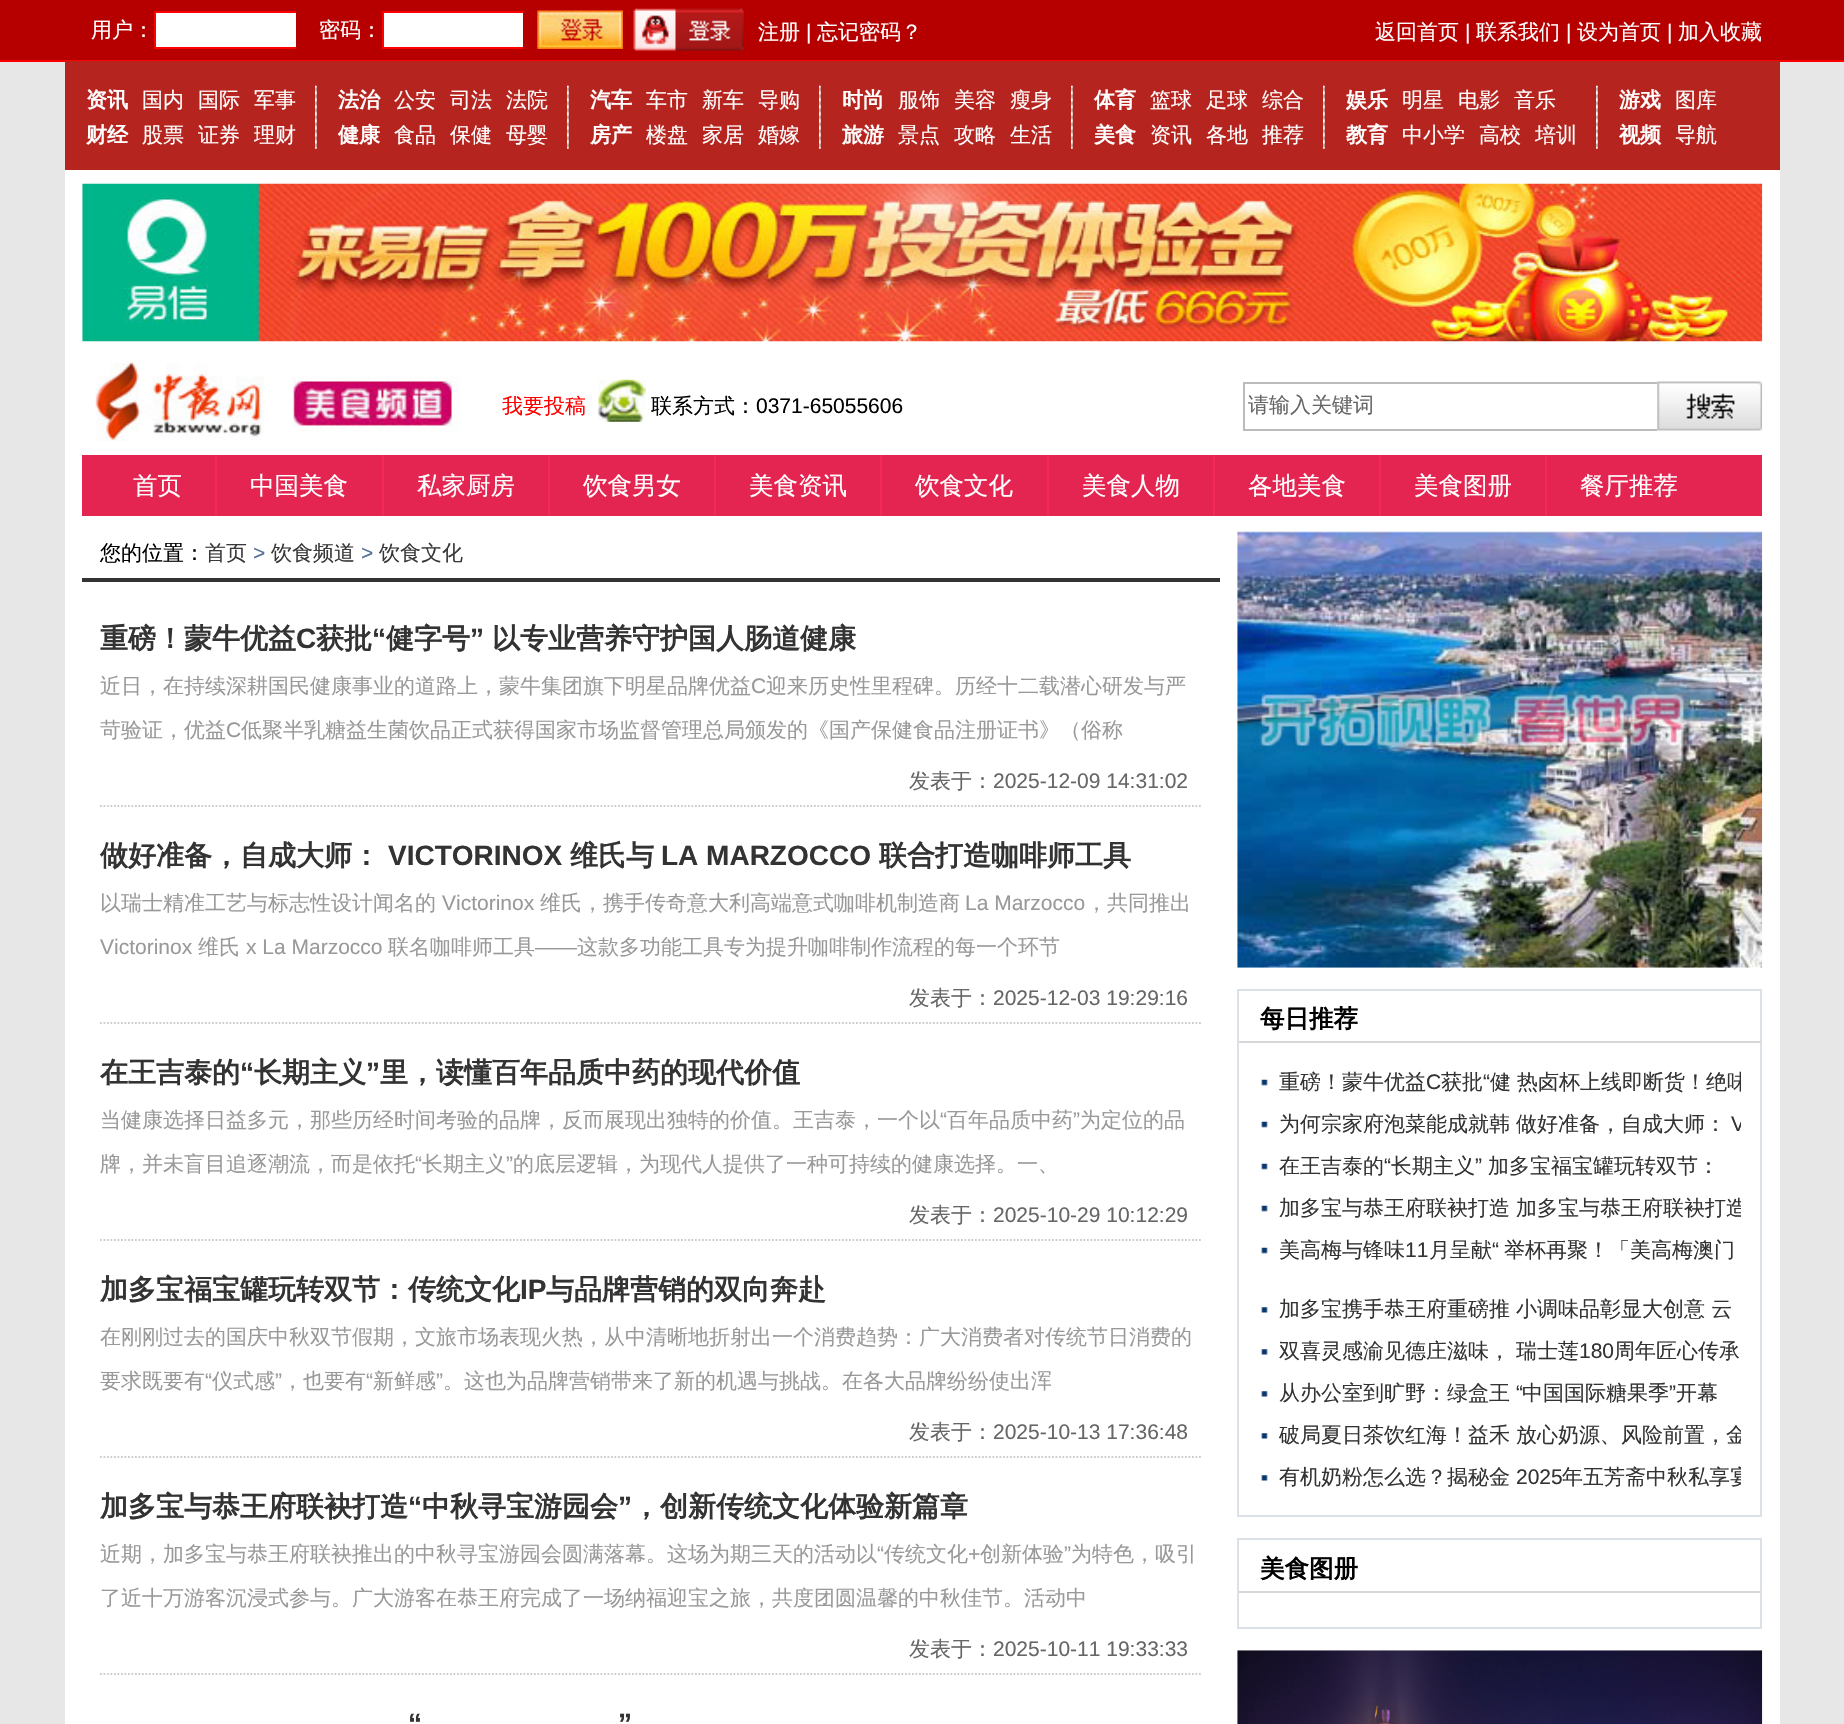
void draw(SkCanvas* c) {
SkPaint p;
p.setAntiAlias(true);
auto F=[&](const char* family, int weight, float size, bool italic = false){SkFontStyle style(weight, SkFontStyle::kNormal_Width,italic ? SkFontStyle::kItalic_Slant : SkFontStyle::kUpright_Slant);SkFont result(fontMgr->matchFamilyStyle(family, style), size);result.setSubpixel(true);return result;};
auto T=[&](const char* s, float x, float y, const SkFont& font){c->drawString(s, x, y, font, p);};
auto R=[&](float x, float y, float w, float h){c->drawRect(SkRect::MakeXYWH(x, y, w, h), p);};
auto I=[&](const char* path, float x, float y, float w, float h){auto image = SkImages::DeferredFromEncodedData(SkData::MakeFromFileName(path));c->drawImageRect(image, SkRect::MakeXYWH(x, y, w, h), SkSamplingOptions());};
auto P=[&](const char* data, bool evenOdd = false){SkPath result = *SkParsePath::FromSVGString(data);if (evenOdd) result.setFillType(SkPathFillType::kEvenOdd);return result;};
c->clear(0xffe7e7e7);
p.setColor(0xffb60000);
R(0,0,1844,60);
p.setColor(0xfffe0000);
R(0,60,1844,2);
auto f1 = F("WenQuanYi Zen Hei",500,21);
p.setColor(0xffffffff);
T("用户：",91,37,f1);
R(156,13,140,34);
p.setColor(0xfffe0000);
R(154,11,142,2);
R(154,47,142,2);
R(154,11,2,38);
p.setColor(0xffffffff);
T("密码：",319,37,f1);
R(384,13,139,34);
p.setColor(0xfffe0000);
R(382,11,141,2);
R(382,47,141,2);
R(382,11,2,38);
I("1.png",537,10,86,39);
I("2.png",633,8,111,43);
p.setColor(0xffffffff);
T("注册",758,39,f1);
auto f2 = F("Liberation Sans",400,21);
T("|",806,39,f2);
T("忘记密码？",817,39,f1);
T("返回首页",1375,39,f1);
T("|",1465,39,f2);
T("联系我们",1476,39,f1);
T("|",1566,39,f2);
T("设为首页",1577,39,f1);
T("|",1667,39,f2);
T("加入收藏",1678,39,f1);
R(65,170,1715,1554);
p.setColor(0xffb6241f);
R(65,61,1715,109);
I("3.png",315,85,2,64);
auto f3 = F("WenQuanYi Zen Hei",700,21);
p.setColor(0xffffffff);
T("资讯",86,107,f3);
T("国内",142,107,f1);
T("国际",198,107,f1);
T("军事",254,107,f1);
T("财经",86,142,f3);
T("股票",142,142,f1);
T("证券",198,142,f1);
T("理财",254,142,f1);
I("3.png",567,85,2,64);
T("法治",338,107,f3);
T("公安",394,107,f1);
T("司法",450,107,f1);
T("法院",506,107,f1);
T("健康",338,142,f3);
T("食品",394,142,f1);
T("保健",450,142,f1);
T("母婴",506,142,f1);
I("3.png",819,85,2,64);
T("汽车",590,107,f3);
T("车市",646,107,f1);
T("新车",702,107,f1);
T("导购",758,107,f1);
T("房产",590,142,f3);
T("楼盘",646,142,f1);
T("家居",702,142,f1);
T("婚嫁",758,142,f1);
I("3.png",1071,85,2,64);
T("时尚",842,107,f3);
T("服饰",898,107,f1);
T("美容",954,107,f1);
T("瘦身",1010,107,f1);
T("旅游",842,142,f3);
T("景点",898,142,f1);
T("攻略",954,142,f1);
T("生活",1010,142,f1);
I("3.png",1323,85,2,64);
T("体育",1094,107,f3);
T("篮球",1150,107,f1);
T("足球",1206,107,f1);
T("综合",1262,107,f1);
T("美食",1094,142,f3);
T("资讯",1150,142,f1);
T("各地",1206,142,f1);
T("推荐",1262,142,f1);
I("3.png",1596,85,2,64);
T("娱乐",1346,107,f3);
T("明星",1402,107,f1);
T("电影",1458,107,f1);
T("音乐",1514,107,f1);
T("教育",1346,142,f3);
T("中小学",1402,142,f1);
T("高校",1479,142,f1);
T("培训",1535,142,f1);
T("游戏",1619,107,f3);
T("图库",1675,107,f1);
T("视频",1619,142,f3);
T("导航",1675,142,f1);
I("4.png",82,183,1681,159);
I("5.png",95,362,365,79);
p.setColor(0xffff0000);
T("我要投稿",502,413,f1);
I("6.png",598,379,48,43);
p.setColor(0xff000000);
T("联系方式：",651,413,f1);
T("0371-65055606",756,413,f2);
p.setColor(0xffbbbbbb);
R(1243,382,414,2);
R(1243,429,414,2);
R(1243,382,2,49);
p.setColor(0xff666666);
T("请输入关键词",1248,412,f1);
I("7.png",1657,381,106,50);
p.setColor(0xffe42551);
R(82,455,1680,61);
auto f4 = F("WenQuanYi Zen Hei",500,24.5);
p.setColor(0xffffffff);
T("首页",133,494,f4);
p.setColor(0xfff32a58);
R(215,455,2,61);
p.setColor(0xffffffff);
T("中国美食",250,494,f4);
p.setColor(0xfff32a58);
R(382,455,2,61);
p.setColor(0xffffffff);
T("私家厨房",417,494,f4);
p.setColor(0xfff32a58);
R(548,455,2,61);
p.setColor(0xffffffff);
T("饮食男女",583,494,f4);
p.setColor(0xfff32a58);
R(714,455,2,61);
p.setColor(0xffffffff);
T("美食资讯",749,494,f4);
p.setColor(0xfff32a58);
R(880,455,2,61);
p.setColor(0xffffffff);
T("饮食文化",915,494,f4);
p.setColor(0xfff32a58);
R(1047,455,2,61);
p.setColor(0xffffffff);
T("美食人物",1082,494,f4);
p.setColor(0xfff32a58);
R(1213,455,2,61);
p.setColor(0xffffffff);
T("各地美食",1248,494,f4);
p.setColor(0xfff32a58);
R(1379,455,2,61);
p.setColor(0xffffffff);
T("美食图册",1414,494,f4);
p.setColor(0xfff32a58);
R(1545,455,2,61);
p.setColor(0xffffffff);
T("餐厅推荐",1580,494,f4);
p.setColor(0xff333333);
R(82,578,1138,4);
p.setColor(0xff000000);
T("您的位置：",100,560,f1);
p.setColor(0xff393939);
T("首页",205,560,f1);
p.setColor(0xff537197);
T(">",253,560,f2);
p.setColor(0xff393939);
T("饮食频道",271,560,f1);
p.setColor(0xff537197);
T(">",361,560,f2);
p.setColor(0xff393939);
T("饮食文化",379,560,f1);
p.setStroke(true);
p.setStrokeWidth(1.8);
p.setColor(0xffcccccc);
p.setPathEffect(SkDashPathEffect::Make({{1.75f,1.75f}}, 0));
c->drawPath(P("M100 806h1102"),p);
p.setPathEffect(nullptr);
auto f5 = F("WenQuanYi Zen Hei",700,28);
p.setStroke(false);
p.setColor(0xff333333);
T("重磅！蒙牛优益",100,648,f5);
auto f6 = F("Liberation Sans",700,28);
T("C",296,648,f6);
T("获批",316,648,f5);
T("“",372,648,f6);
T("健字号",386,648,f5);
T("”",470,648,f6);
T("以专业营养守护国人肠道健康",492,648,f5);
p.setColor(0xff999999);
T("近日，在持续深耕国民健康事业的道路上，蒙牛集团旗下明星品牌优益",100,693,f1);
T("C",751,693,f2);
T("迎来历史性里程碑。历经十二载潜心研发与严",766,693,f1);
T("苛验证，优益",100,737,f1);
T("C",226,737,f2);
T("低聚半乳糖益生菌饮品正式获得国家市场监督管理总局颁发的《国产保健食品注册证书》（俗称",241,737,f1);
p.setColor(0xff666666);
T("发表于：",909,788,f1);
T("2025-12-09 14:31:02",993,788,f2);
p.setStroke(true);
p.setColor(0xffcccccc);
p.setPathEffect(SkDashPathEffect::Make({{1.75f,1.75f}}, 0));
c->drawPath(P("M100 1023h1102"),p);
p.setPathEffect(nullptr);
p.setStroke(false);
p.setColor(0xff333333);
T("做好准备，自成大师：",100,865,f5);
T("VICTORINOX",388,865,f6);
T("维氏与",570,865,f5);
T("LA MARZOCCO",661,865,f6);
T("联合打造咖啡师工具",879,865,f5);
p.setColor(0xff999999);
T("以瑞士精准工艺与标志性设计闻名的",100,910,f1);
T("Victorinox",442,910,f2);
T("维氏，携手传奇意大利高端意式咖啡机制造商",540,910,f1);
T("La Marzocco",965,910,f2);
T("，共同推出",1086,910,f1);
T("Victorinox",100,954,f2);
T("维氏",198,954,f1);
T("x La Marzocco",246,954,f2);
T("联名咖啡师工具",388,954,f1);
T("——",535,954,f2);
T("这款多功能工具专为提升咖啡制作流程的每一个环节",577,954,f1);
p.setColor(0xff666666);
T("发表于：",909,1005,f1);
T("2025-12-03 19:29:16",993,1005,f2);
p.setStroke(true);
p.setColor(0xffcccccc);
p.setPathEffect(SkDashPathEffect::Make({{1.75f,1.75f}}, 0));
c->drawPath(P("M100 1240h1102"),p);
p.setPathEffect(nullptr);
p.setStroke(false);
p.setColor(0xff333333);
T("在王吉泰的",100,1082,f5);
T("“",240,1082,f6);
T("长期主义",254,1082,f5);
T("”",366,1082,f6);
T("里，读懂百年品质中药的现代价值",380,1082,f5);
p.setColor(0xff999999);
T("当健康选择日益多元，那些历经时间考验的品牌，反而展现出独特的价值。王吉泰，一个以",100,1127,f1);
T("“",940,1127,f2);
T("百年品质中药",947,1127,f1);
T("”",1073,1127,f2);
T("为定位的品",1080,1127,f1);
T("牌，并未盲目追逐潮流，而是依托",100,1171,f1);
T("“",415,1171,f2);
T("长期主义",422,1171,f1);
T("”",506,1171,f2);
T("的底层逻辑，为现代人提供了一种可持续的健康选择。一、",513,1171,f1);
p.setColor(0xff666666);
T("发表于：",909,1222,f1);
T("2025-10-29 10:12:29",993,1222,f2);
p.setStroke(true);
p.setColor(0xffcccccc);
p.setPathEffect(SkDashPathEffect::Make({{1.75f,1.75f}}, 0));
c->drawPath(P("M100 1457h1102"),p);
p.setPathEffect(nullptr);
p.setStroke(false);
p.setColor(0xff333333);
T("加多宝福宝罐玩转双节：传统文化",100,1299,f5);
T("IP",520,1299,f6);
T("与品牌营销的双向奔赴",546,1299,f5);
p.setColor(0xff999999);
T("在刚刚过去的国庆中秋双节假期，文旅市场表现火热，从中清晰地折射出一个消费趋势：广大消费者对传统节日消费的",100,1344,f1);
T("要求既要有",100,1388,f1);
T("“",205,1388,f2);
T("仪式感",212,1388,f1);
T("”",275,1388,f2);
T("，也要有",282,1388,f1);
T("“",366,1388,f2);
T("新鲜感",373,1388,f1);
T("”",436,1388,f2);
T("。这也为品牌营销带来了新的机遇与挑战。在各大品牌纷纷使出浑",443,1388,f1);
p.setColor(0xff666666);
T("发表于：",909,1439,f1);
T("2025-10-13 17:36:48",993,1439,f2);
p.setStroke(true);
p.setColor(0xffcccccc);
p.setPathEffect(SkDashPathEffect::Make({{1.75f,1.75f}}, 0));
c->drawPath(P("M100 1674h1102"),p);
p.setPathEffect(nullptr);
p.setStroke(false);
p.setColor(0xff333333);
T("加多宝与恭王府联袂打造",100,1516,f5);
T("“",408,1516,f6);
T("中秋寻宝游园会",422,1516,f5);
T("”",618,1516,f6);
T("，创新传统文化体验新篇章",632,1516,f5);
p.setColor(0xff999999);
T("近期，加多宝与恭王府联袂推出的中秋寻宝游园会圆满落幕。这场为期三天的活动以",100,1561,f1);
T("“",877,1561,f2);
T("传统文化",884,1561,f1);
T("+",968,1561,f2);
T("创新体验",980,1561,f1);
T("”",1064,1561,f2);
T("为特色，吸引",1071,1561,f1);
T("了近十万游客沉浸式参与。广大游客在恭王府完成了一场纳福迎宝之旅，共度团圆温馨的中秋佳节。活动中",100,1605,f1);
p.setColor(0xff666666);
T("发表于：",909,1656,f1);
T("2025-10-11 19:33:33",993,1656,f2);
p.setColor(0xff333333);
T("“",408,1733,f6);
T("”",618,1733,f6);
I("8.png",1237,530,526,438);
p.setStroke(true);
p.setStrokeWidth(2);
p.setColor(0xffdbe1e6);
c->drawRect(SkRect::MakeXYWH(1238,990,523,526),p);
p.setStroke(false);
p.setColor(0xffd7d6d6);
R(1239,1041,522,2);
auto f7 = F("WenQuanYi Zen Hei",700,24.5);
p.setColor(0xff000000);
T("每日推荐",1260,1027,f7);
I("9.png",1261,1079,7,7);
p.setColor(0xff333333);
T("重磅！蒙牛优益",1279,1089,f1);
T("C",1426,1089,f2);
T("获批",1441,1089,f1);
T("“",1483,1089,f2);
T("健",1490,1089,f1);
c->save();
c->clipRect(SkRect::MakeXYWH(1257,1061,484,42));
T("热卤杯上线即断货！绝味",1517,1089,f1);
c->restore();
I("9.png",1261,1121,7,7);
T("为何宗家府泡菜能成就韩",1279,1131,f1);
T("做好准备，自成大师：",1516,1131,f1);
c->save();
c->clipRect(SkRect::MakeXYWH(1257,1103,484,42));
T("V",1731,1131,f2);
c->restore();
I("9.png",1261,1163,7,7);
T("在王吉泰的",1279,1173,f1);
T("“",1384,1173,f2);
T("长期主义",1391,1173,f1);
T("”",1475,1173,f2);
T("加多宝福宝罐玩转双节：",1488,1173,f1);
I("9.png",1261,1205,7,7);
T("加多宝与恭王府联袂打造",1279,1215,f1);
c->save();
c->clipRect(SkRect::MakeXYWH(1257,1187,484,42));
T("加多宝与恭王府联袂打造",1516,1215,f1);
c->restore();
I("9.png",1261,1247,7,7);
T("美高梅与锋味",1279,1257,f1);
T("11",1405,1257,f2);
T("月呈献",1429,1257,f1);
T("“",1492,1257,f2);
T("举杯再聚！「美高梅澳门",1504,1257,f1);
I("10.png",1261,1307,7,6);
T("加多宝携手恭王府重磅推",1279,1316,f1);
T("小调味品彰显大创意 云",1516,1316,f1);
I("10.png",1261,1349,7,6);
T("双喜灵感渝见德庄滋味，",1279,1358,f1);
T("瑞士莲",1516,1358,f1);
T("180",1579,1358,f2);
T("周年匠心传承",1614,1358,f1);
I("10.png",1261,1391,7,6);
T("从办公室到旷野：绿盒王",1279,1400,f1);
T("“",1516,1400,f2);
T("中国国际糖果季",1522,1400,f1);
T("”",1669,1400,f2);
T("开幕",1676,1400,f1);
I("10.png",1261,1433,7,6);
T("破局夏日茶饮红海！益禾",1279,1442,f1);
c->save();
c->clipRect(SkRect::MakeXYWH(1257,1414,484,42));
T("放心奶源、风险前置，金",1516,1442,f1);
c->restore();
I("10.png",1261,1475,7,6);
T("有机奶粉怎么选？揭秘金",1279,1484,f1);
T("2025",1516,1484,f2);
c->save();
c->clipRect(SkRect::MakeXYWH(1257,1456,484,42));
T("年五芳斋中秋私享宴",1562,1484,f1);
c->restore();
p.setStroke(true);
p.setColor(0xffdbe1e6);
c->drawRect(SkRect::MakeXYWH(1238,1539,523,89),p);
p.setStroke(false);
p.setColor(0xffd7d6d6);
R(1239,1591,522,2);
p.setColor(0xff000000);
T("美食图册",1260,1577,f7);
I("11.png",1237,1650,526,74);
}
